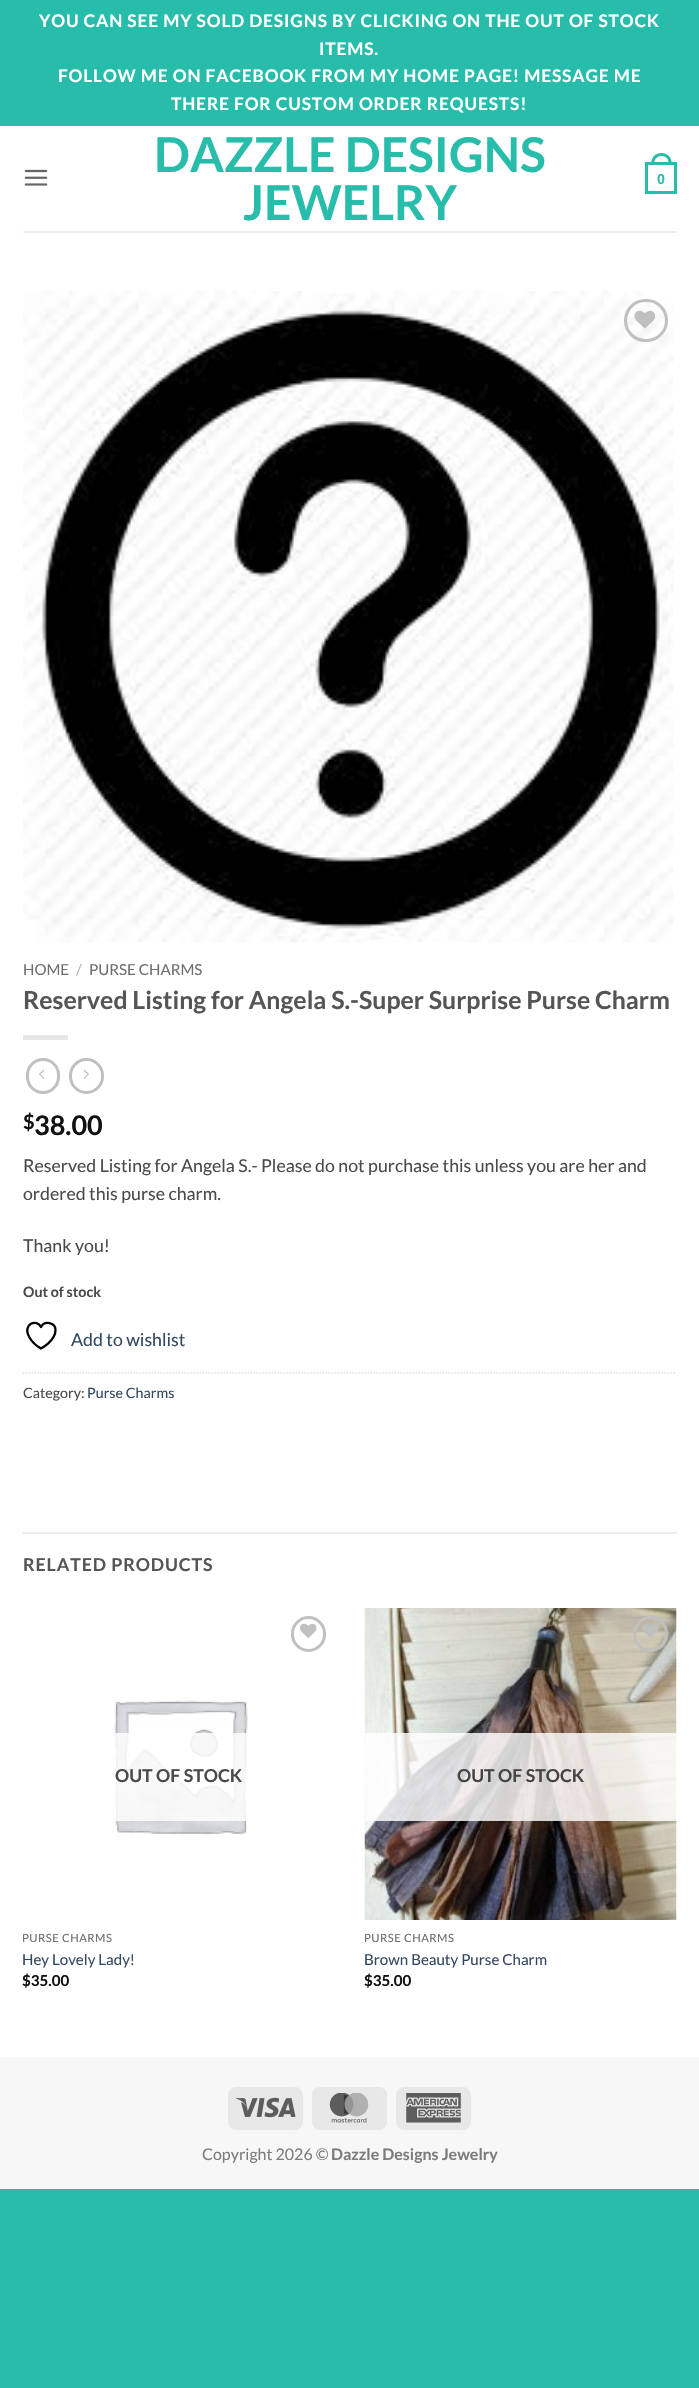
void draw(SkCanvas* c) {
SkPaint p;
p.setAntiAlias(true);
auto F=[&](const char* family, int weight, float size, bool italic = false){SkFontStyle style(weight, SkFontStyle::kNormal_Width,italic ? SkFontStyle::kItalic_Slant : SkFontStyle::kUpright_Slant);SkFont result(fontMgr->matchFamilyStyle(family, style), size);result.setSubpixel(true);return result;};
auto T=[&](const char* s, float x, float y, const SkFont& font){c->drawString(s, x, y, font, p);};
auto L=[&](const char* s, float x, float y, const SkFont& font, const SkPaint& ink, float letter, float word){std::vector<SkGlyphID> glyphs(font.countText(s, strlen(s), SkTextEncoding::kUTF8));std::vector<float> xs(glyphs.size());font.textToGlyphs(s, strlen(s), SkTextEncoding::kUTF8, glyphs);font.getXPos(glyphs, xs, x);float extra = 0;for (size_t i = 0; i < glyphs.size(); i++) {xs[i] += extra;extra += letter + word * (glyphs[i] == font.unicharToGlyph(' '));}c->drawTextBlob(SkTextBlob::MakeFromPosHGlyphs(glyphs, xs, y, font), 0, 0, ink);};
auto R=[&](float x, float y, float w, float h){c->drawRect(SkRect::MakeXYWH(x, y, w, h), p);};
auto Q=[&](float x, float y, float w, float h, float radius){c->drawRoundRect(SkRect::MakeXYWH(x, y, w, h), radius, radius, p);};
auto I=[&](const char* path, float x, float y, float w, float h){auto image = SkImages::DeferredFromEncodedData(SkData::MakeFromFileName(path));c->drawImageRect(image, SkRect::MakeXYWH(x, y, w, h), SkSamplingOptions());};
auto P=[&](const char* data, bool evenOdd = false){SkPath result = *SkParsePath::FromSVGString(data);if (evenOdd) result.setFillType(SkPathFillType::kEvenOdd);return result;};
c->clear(0xff28bdab);
p.setColor(0xffffffff);
R(0,126,699,1931);
auto f1 = F("Lato",700,17.3);
L("YOU CAN SEE MY SOLD DESIGNS BY CLICKING ON THE OUT OF STOCK",39,27,f1,p,.87,0);
L("ITEMS.",319,55,f1,p,.87,0);
L("FOLLOW ME ON FACEBOOK FROM MY HOME PAGE! MESSAGE ME",58,82,f1,p,.87,0);
L("THERE FOR CUSTOM ORDER REQUESTS!",171,110,f1,p,.87,0);
I("1.png",24,169,24,17);
auto f2 = F("Lato",700,48);
p.setColor(0xff28bdab);
T("DAZZLE DESIGNS",154,172,f2);
T("JEWELRY",243,220,f2);
p.setStroke(true);
p.setStrokeWidth(3);
c->drawRect(SkRect::MakeXYWH(646.5,163.5,29,29),p);
p.setStroke(false);
c->drawPath(P("M661.5 153c7 0 10.5 5.5 10.5 12h-21c0-6.5 3.5-12 10.5-12zm0 3c5.5 0 7.5 4.5 7.5 9h-15c0-4.5 2-9 7.5-9z",true),p);
auto f3 = F("Liberation Sans",700,14.25);
T("0",657,184,f3);
p.setColor(0xffededed);
R(23,231,654,2);
I("2.png",23,291,651,652);
p.setStroke(true);
p.setColor(0xffc0c0c0);
c->drawRoundRect(SkRect::MakeXYWH(625.5,300.5,41,40),20,20,p);
I("3.png",634,310,22,19);
auto f4 = F("Lato",400,15.1);
p.setStroke(false);
p.setColor(0xff6e6e6e);
T("HOME",23,975,f4);
p.setColor(0xffb2b2b2);
T("/",76,975,f4);
p.setColor(0xff6e6e6e);
T("PURSE CHARMS",89,975,f4);
auto f5 = F("Lato",700,24.85);
p.setColor(0xff555555);
T("Reserved Listing for Angela S.-Super Surprise Purse Charm",23,1009,f5);
p.setColor(0xffe6e6e6);
R(23,1035,45,5);
p.setStroke(true);
p.setColor(0xffc0c0c0);
c->drawRoundRect(SkRect::MakeXYWH(27.5,1059.5,31,33),15.5,15.5,p);
I("4.png",39,1069,6,10);
c->drawRoundRect(SkRect::MakeXYWH(70.5,1059.5,32,33),16,16,p);
I("5.png",83,1069,6,10);
auto f6 = F("Lato",700,20);
p.setStroke(false);
p.setColor(0xff111111);
T("$",23,1129,f6);
auto f7 = F("Lato",700,27);
T("38.00",34,1135,f7);
auto f8 = F("Lato",400,17.75);
p.setColor(0xff4a4a4a);
T("Reserved Listing for Angela S.- Please do not purchase this unless you are her and",23,1172,f8);
T("ordered this purse charm.",23,1200,f8);
T("Thank you!",23,1252,f8);
auto f9 = F("Lato",700,14.25);
T("Out of stock",23,1297,f9);
p.setColor(0xff334862);
T("Add to wishlist",71,1346,f8);
p.setStroke(true);
p.setStrokeWidth(2.3);
p.setStrokeCap(SkPaint::kRound_Cap);
p.setStrokeJoin(SkPaint::kRound_Join);
p.setColor(0xff000000);
c->drawPath(P("M55.5 1330c0-8-11.5-9.5-14.5-3c-3.5-8.5-19.5-3.5-11.5 10.5c2.5 4.5 7 8.5 11.5 11c0 0 14.5-7.5 14.5-18.5z"),p);
p.setStrokeWidth(1.5);
p.setStrokeCap(SkPaint::kButt_Cap);
p.setStrokeJoin(SkPaint::kMiter_Join);
p.setColor(0xffdddddd);
p.setPathEffect(SkDashPathEffect::Make({{1.5f,1.5f}}, 0));
c->drawPath(P("M22.5 1373h654"),p);
p.setPathEffect(nullptr);
auto f10 = F("Lato",400,14.25);
p.setStroke(false);
p.setColor(0xff4a4a4a);
T("Category:",23,1398,f10);
p.setColor(0xff334862);
T("Purse Charms",87,1398,f10);
p.setColor(0xffececec);
R(23,1532,654,2);
auto f11 = F("Lato",700,17.75);
p.setColor(0xff555555);
L("RELATED PRODUCTS",23,1571,f11,p,.9,0);
p.setStroke(true);
p.setStrokeWidth(3);
p.setColor(0xffc0c0c0);
c->drawRoundRect(SkRect::MakeXYWH(292.5,1617.5,32,33),16,16,p);
I("6.png",300,1623,17,15);
I("7.png",114,1700,134,135);
p.setStroke(false);
p.setColor(0xcfffffff);
R(114,1733,134,88);
p.setColor(0xff4a4a4a);
T("OUT OF STOCK",115,1782,f11);
auto f12 = F("Lato",400,11.25);
p.setColor(0xff6e6e6e);
L("PURSE CHARMS",22,1942,f12,p,.5,0);
p.setColor(0xff334862);
T("Hey Lovely Lady!",22,1965,f4);
auto f13 = F("Lato",700,15.1);
p.setColor(0xff111111);
T("$35.00",22,1986,f13);
I("8.png",364,1608,313,312);
p.setStroke(true);
p.setColor(0xffc0c0c0);
c->drawRoundRect(SkRect::MakeXYWH(634.5,1617.5,32,33),16,16,p);
I("9.png",642,1624,17,14);
p.setStroke(false);
p.setColor(0xcfffffff);
R(365,1733,312,88);
p.setColor(0xff454444);
T("OUT OF STOCK",457,1782,f11);
p.setColor(0xff6e6e6e);
L("PURSE CHARMS",364,1942,f12,p,.5,0);
p.setColor(0xff334862);
T("Brown Beauty Purse Charm",364,1965,f4);
p.setColor(0xff111111);
T("$35.00",364,1986,f13);
p.setColor(0xfff7f7f7);
R(0,2057,699,132);
p.setColor(0xffe8e8e8);
Q(228,2087,75,43,8);
I("10.png",236,2097,60,21);
Q(312,2087,75,43,8);
I("11.png",329,2093,40,30);
Q(396,2087,75,43,8);
I("12.png",406,2093,55,30);
auto f14 = F("Lato",400,16);
p.setColor(0xff7c7c7c);
T("Copyright 2026 ©",202,2160,f14);
auto f15 = F("Lato",700,16);
T("Dazzle Designs Jewelry",331,2160,f15);
}
